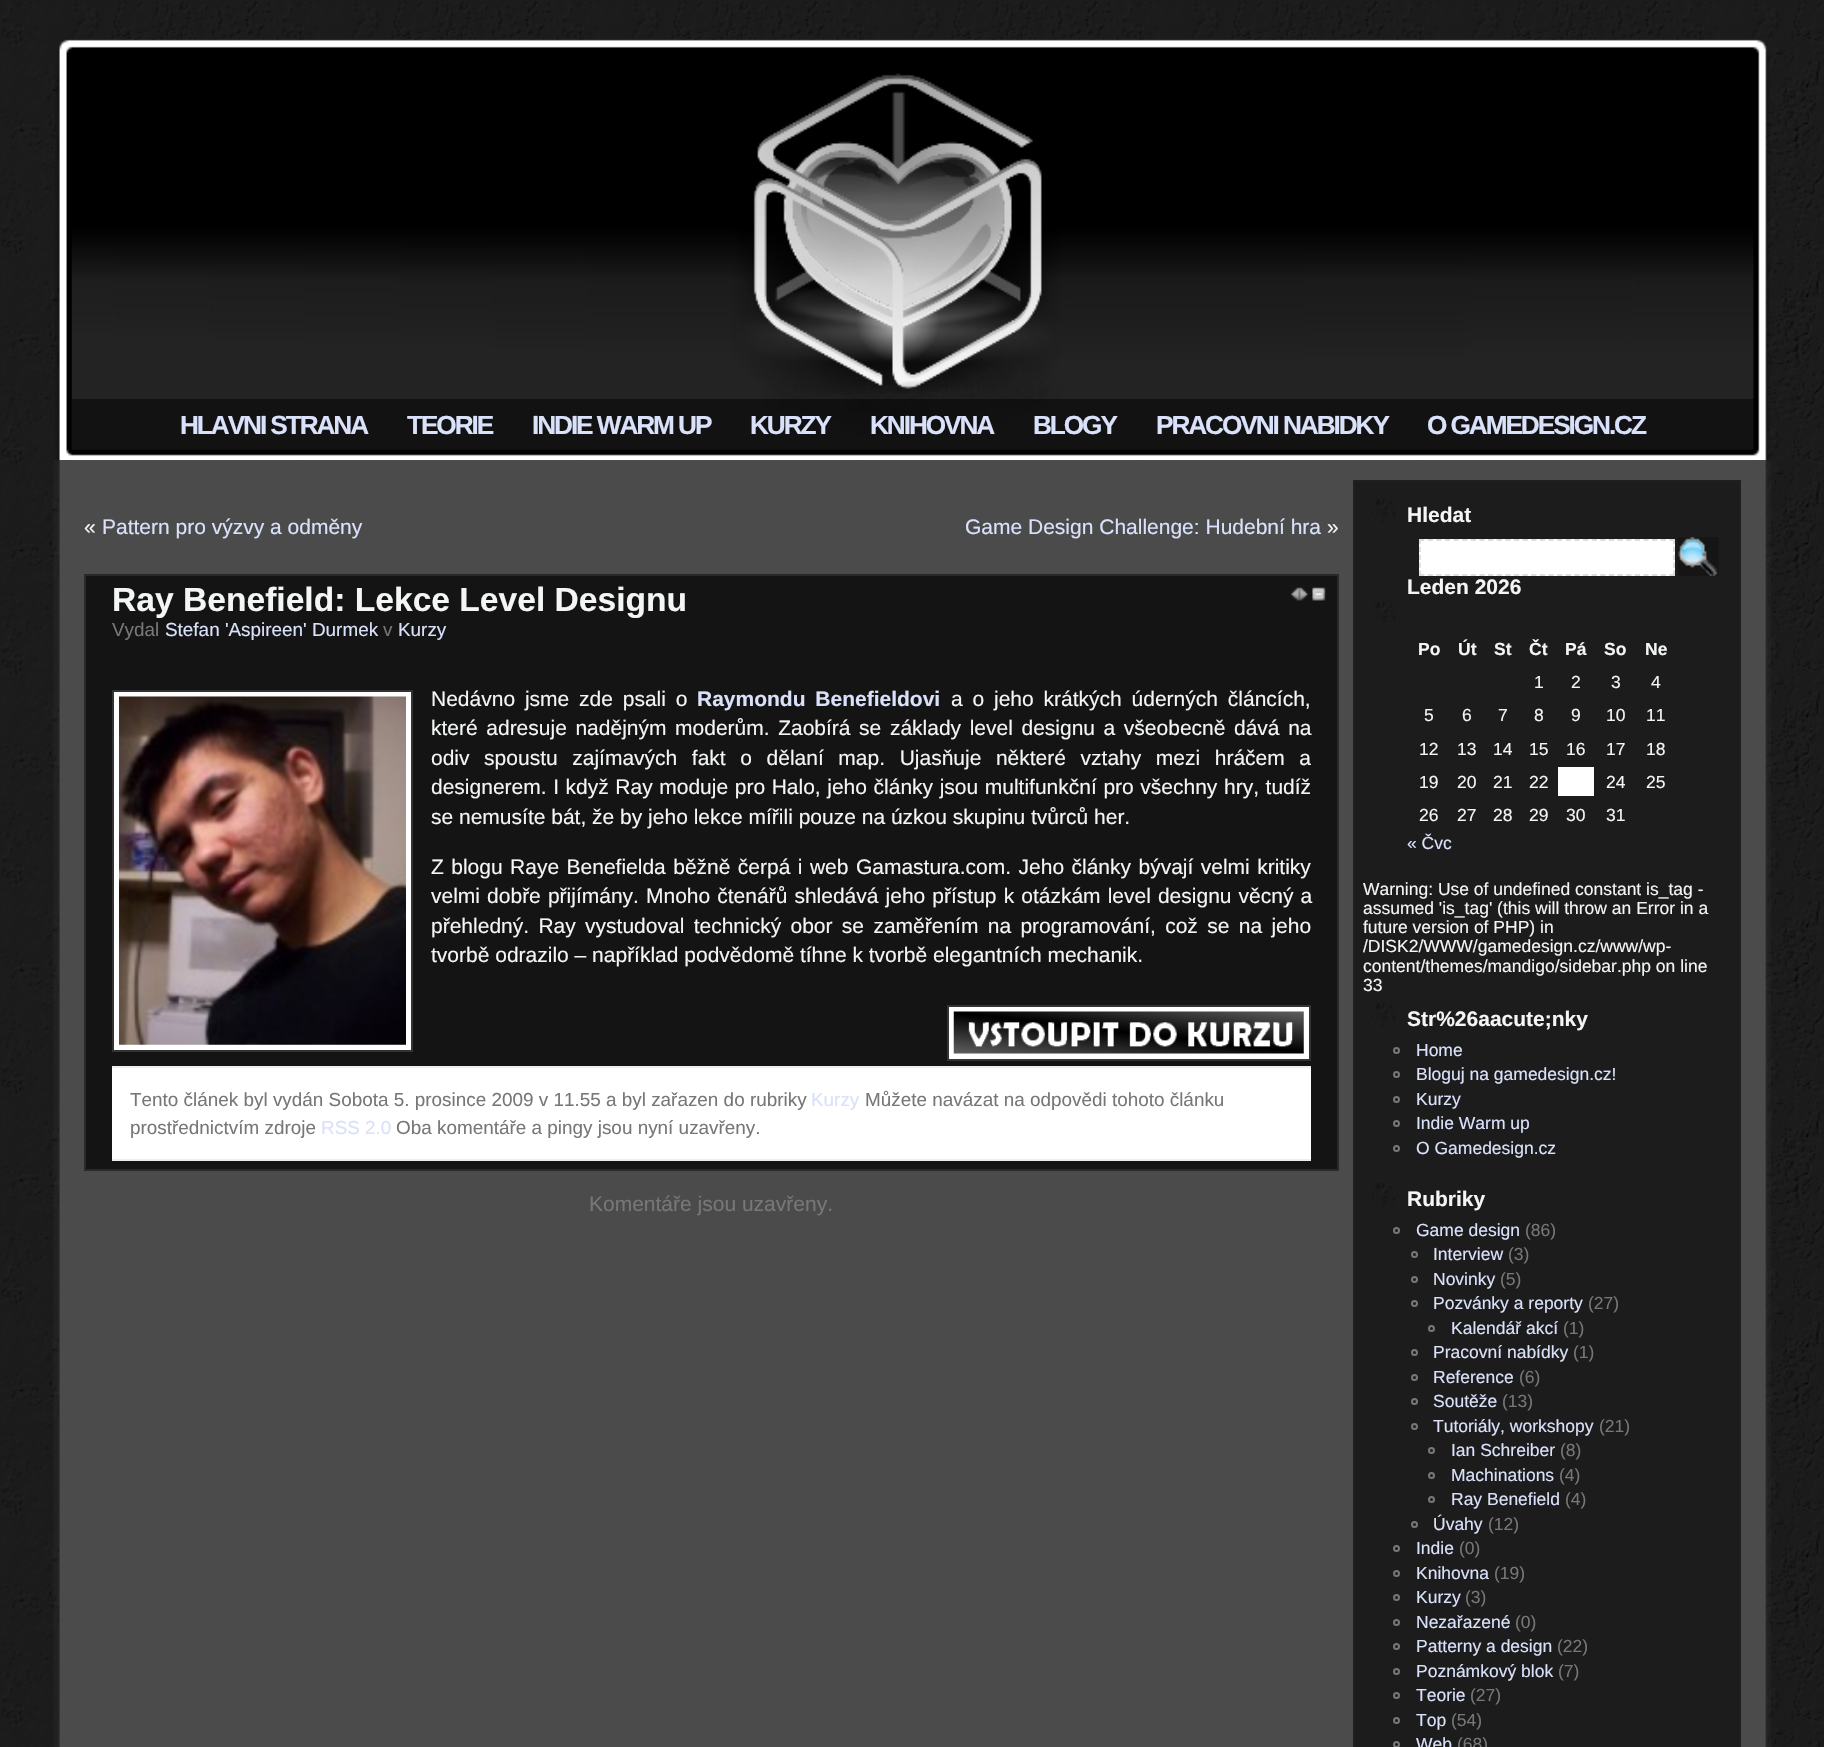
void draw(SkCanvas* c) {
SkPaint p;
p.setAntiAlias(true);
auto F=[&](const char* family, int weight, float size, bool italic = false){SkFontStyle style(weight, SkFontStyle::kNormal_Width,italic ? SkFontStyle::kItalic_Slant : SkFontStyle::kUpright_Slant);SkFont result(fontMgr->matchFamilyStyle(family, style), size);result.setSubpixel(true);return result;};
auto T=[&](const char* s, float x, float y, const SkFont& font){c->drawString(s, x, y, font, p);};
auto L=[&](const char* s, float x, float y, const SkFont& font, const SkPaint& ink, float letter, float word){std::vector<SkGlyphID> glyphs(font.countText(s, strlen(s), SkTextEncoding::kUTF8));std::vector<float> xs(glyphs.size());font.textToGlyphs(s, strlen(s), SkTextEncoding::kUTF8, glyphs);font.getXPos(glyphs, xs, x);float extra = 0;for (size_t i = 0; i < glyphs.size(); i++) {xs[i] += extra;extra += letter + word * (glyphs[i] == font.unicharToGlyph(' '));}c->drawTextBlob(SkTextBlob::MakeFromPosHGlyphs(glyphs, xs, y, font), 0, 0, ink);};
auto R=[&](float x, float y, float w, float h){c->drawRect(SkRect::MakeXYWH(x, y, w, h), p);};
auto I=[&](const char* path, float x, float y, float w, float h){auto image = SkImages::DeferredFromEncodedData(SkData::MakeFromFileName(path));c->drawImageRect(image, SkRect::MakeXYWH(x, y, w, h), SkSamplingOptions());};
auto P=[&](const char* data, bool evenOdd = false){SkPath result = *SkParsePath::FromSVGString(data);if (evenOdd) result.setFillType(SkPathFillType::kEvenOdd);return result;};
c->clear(0xffffffff);
I("1.png",0,0,1824,1747);
I("2.png",55,39,1715,422);
I("3.png",71,73,1683,377);
p.setColor(0x80000000);
R(72,399,1682,51);
auto f1 = F("Liberation Sans",700,26.25);
p.setColor(0xffdae1fb);
L("HLAVNI STRANA",180,434,f1,p,-2.1,0);
L("TEORIE",407,434,f1,p,-2.1,0);
L("INDIE WARM UP",532,434,f1,p,-2.1,0);
L("KURZY",750,434,f1,p,-2.1,0);
L("KNIHOVNA",870,434,f1,p,-2.1,0);
L("BLOGY",1033,434,f1,p,-2.1,0);
L("PRACOVNI NABIDKY",1156,434,f1,p,-2.1,0);
L("O GAMEDESIGN.CZ",1427,434,f1,p,-2.1,0);
I("4.png",53,460,1718,1287);
auto f2 = F("Liberation Sans",400,21);
p.setColor(0xfff4f6f6);
T("«",84,534,f2);
p.setColor(0xffdae1fb);
T("Pattern pro výzvy a odměny",102,534,f2);
T("Game Design Challenge: Hudební hra",965,534,f2);
p.setColor(0xfff4f6f6);
T("»",1327,534,f2);
p.setColor(0xff141414);
c->drawRect(SkRect::MakeXYWH(85,575,1253,595),p);
p.setStroke(true);
p.setStrokeWidth(2);
p.setColor(0xff292929);
c->drawRect(SkRect::MakeXYWH(85,575,1253,595),p);
auto f3 = F("Liberation Sans",700,33.6);
p.setStroke(false);
p.setColor(0xfff4f6f6);
T("Ray Benefield: Lekce Level Designu",112,611,f3);
I("5.png",1291,587,17,14);
I("6.png",1312,587,14,14);
auto f4 = F("Liberation Sans",400,18.9);
p.setColor(0xff777777);
T("Vydal",112,636,f4);
p.setColor(0xffdae1fb);
T("Stefan 'Aspireen' Durmek",165,636,f4);
p.setColor(0xff777777);
T("v",383,636,f4);
p.setColor(0xffdae1fb);
T("Kurzy",398,636,f4);
p.setColor(0xffffffff);
c->drawRect(SkRect::MakeXYWH(113,691,299,360),p);
p.setStroke(true);
p.setColor(0xff333333);
c->drawRect(SkRect::MakeXYWH(113,691,299,360),p);
I("7.png",119,696,287,349);
p.setStroke(false);
p.setColor(0xfff4f6f6);
L("Nedávno jsme zde psali o",431,706,f2,p,0,4);
auto f5 = F("Liberation Sans",700,21);
p.setColor(0xffdae1fb);
L("Raymondu Benefieldovi",697,706,f5,p,0,4);
p.setColor(0xfff4f6f6);
L("a o jeho krátkých úderných článcích,",951,706,f2,p,0,4);
L("které adresuje nadějným moderům. Zaobírá se základy level designu a všeobecně dává na",431,735,f2,p,0,2.75);
L("odiv spoustu zajímavých fakt o dělaní map. Ujasňuje některé vztahy mezi hráčem a",431,765,f2,p,0,8.75);
L("designerem. I když Ray moduje pro Halo, jeho články jsou multifunkční pro všechny hry, tudíž",431,794,f2,p,0,.75);
T("se nemusíte bát, že by jeho lekce mířili pouze na úzkou skupinu tvůrců her.",431,824,f2);
L("Z blogu Raye Benefielda běžně čerpá i web Gamastura.com. Jeho články bývají velmi kritiky",431,874,f2,p,0,1.6);
L("velmi dobře přijímány. Mnoho čtenářů shledává jeho přístup k otázkám level designu věcný a",431,903,f2,p,0,1.25);
L("přehledný. Ray vystudoval technický obor se zaměřením na programování, což se na jeho",431,933,f2,p,0,3.5);
T("tvorbě odrazilo – například podvědomě tíhne k tvorbě elegantních mechanik.",431,962,f2);
p.setColor(0xffffffff);
c->drawRect(SkRect::MakeXYWH(948,1006,362,54),p);
p.setStroke(true);
p.setColor(0xff333333);
c->drawRect(SkRect::MakeXYWH(948,1006,362,54),p);
I("8.png",953,1011,351,43);
p.setStroke(false);
p.setColor(0xffffffff);
R(112,1068,1199,91);
p.setColor(0xffeeeeee);
R(112,1066,1199,2);
R(112,1159,1199,2);
p.setColor(0xff777777);
T("Tento článek byl vydán Sobota 5. prosince 2009 v 11.55 a byl zařazen do rubriky",130,1106,f4);
p.setColor(0xffdae1fb);
T("Kurzy",811,1106,f4);
p.setColor(0xff777777);
T("Můžete navázat na odpovědi tohoto článku",865,1106,f4);
T("prostřednictvím zdroje",130,1134,f4);
p.setColor(0xffdae1fb);
T("RSS 2.0",321,1134,f4);
p.setColor(0xff777777);
T("Oba komentáře a pingy jsou nyní uzavřeny.",396,1134,f4);
T("Komentáře jsou uzavřeny.",589,1211,f2);
p.setColor(0xff1c1c1c);
c->drawRect(SkRect::MakeXYWH(1354,481,386,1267),p);
p.setStroke(true);
p.setColor(0xff1f1f1f);
c->drawRect(SkRect::MakeXYWH(1354,481,386,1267),p);
I("9.png",1372,499,23,23);
p.setStroke(false);
p.setColor(0xfff4f6f6);
T("Hledat",1407,522,f5);
p.setColor(0xffffffff);
R(1419,539,256,37);
p.setStroke(true);
p.setStrokeWidth(1.8);
p.setColor(0xffdddddd);
p.setPathEffect(SkDashPathEffect::Make({{5.25f,3.38f}}, 0));
c->drawPath(P("M1419 540h256"),p);
p.setPathEffect(nullptr);
p.setPathEffect(SkDashPathEffect::Make({{5.25f,2.62f}}, 0));
c->drawPath(P("M1674 539v37"),p);
p.setPathEffect(nullptr);
p.setPathEffect(SkDashPathEffect::Make({{5.25f,3.38f}}, 0));
c->drawPath(P("M1419 575h256"),p);
p.setPathEffect(nullptr);
p.setPathEffect(SkDashPathEffect::Make({{5.25f,2.62f}}, 0));
c->drawPath(P("M1420 539v37"),p);
p.setPathEffect(nullptr);
I("10.png",1678,537,41,39);
I("11.png",1372,602,23,23);
p.setStroke(false);
p.setColor(0xfff4f6f6);
T("Leden 2026",1407,594,f5);
auto f6 = F("Liberation Sans",700,17.5);
T("Po",1418,655,f6);
T("Út",1458,655,f6);
T("St",1494,655,f6);
T("Čt",1529,655,f6);
T("Pá",1565,655,f6);
T("So",1604,655,f6);
T("Ne",1645,655,f6);
auto f7 = F("Liberation Sans",400,17.5);
T("1",1534,688,f7);
T("2",1571,688,f7);
T("3",1611,688,f7);
T("4",1651,688,f7);
T("5",1424,721,f7);
T("6",1462,721,f7);
T("7",1498,721,f7);
T("8",1534,721,f7);
T("9",1571,721,f7);
T("10",1606,721,f7);
T("11",1646,721,f7);
T("12",1419,755,f7);
T("13",1457,755,f7);
T("14",1493,755,f7);
T("15",1529,755,f7);
T("16",1566,755,f7);
T("17",1606,755,f7);
T("18",1646,755,f7);
T("19",1419,788,f7);
T("20",1457,788,f7);
T("21",1493,788,f7);
T("22",1529,788,f7);
p.setColor(0xffffffff);
R(1558,767,36,29);
p.setColor(0xfff4f6f6);
T("24",1606,788,f7);
T("25",1646,788,f7);
T("26",1419,821,f7);
T("27",1457,821,f7);
T("28",1493,821,f7);
T("29",1529,821,f7);
T("30",1566,821,f7);
T("31",1606,821,f7);
p.setColor(0xffdae1fb);
T("« Čvc",1407,849,f7);
p.setColor(0xfff4f6f6);
T("Warning: Use of undefined constant is_tag -",1363,895,f7);
T("assumed 'is_tag' (this will throw an Error in a",1363,914,f7);
T("future version of PHP) in",1363,933,f7);
T("/DISK2/WWW/gamedesign.cz/www/wp-",1363,952,f7);
T("content/themes/mandigo/sidebar.php on line",1363,972,f7);
T("33",1363,991,f7);
I("9.png",1372,1003,23,23);
T("Str%26aacute;nky",1407,1026,f5);
p.setStroke(true);
p.setStrokeWidth(2);
p.setColor(0xff777777);
c->drawCircle(1396.5,1050.5,2.5,p);
p.setStroke(false);
p.setColor(0xffdae1fb);
T("Home",1416,1056,f7);
p.setStroke(true);
p.setColor(0xff777777);
c->drawCircle(1396.5,1074.5,2.5,p);
p.setStroke(false);
p.setColor(0xffdae1fb);
T("Bloguj na gamedesign.cz!",1416,1080,f7);
p.setStroke(true);
p.setColor(0xff777777);
c->drawCircle(1396.5,1099.5,2.5,p);
p.setStroke(false);
p.setColor(0xffdae1fb);
T("Kurzy",1416,1105,f7);
p.setStroke(true);
p.setColor(0xff777777);
c->drawCircle(1396.5,1123.5,2.5,p);
p.setStroke(false);
p.setColor(0xffdae1fb);
T("Indie Warm up",1416,1129,f7);
p.setStroke(true);
p.setColor(0xff777777);
c->drawCircle(1396.5,1148.5,2.5,p);
p.setStroke(false);
p.setColor(0xffdae1fb);
T("O Gamedesign.cz",1416,1154,f7);
I("11.png",1372,1183,23,23);
p.setColor(0xfff4f6f6);
T("Rubriky",1407,1206,f5);
p.setStroke(true);
p.setColor(0xff777777);
c->drawCircle(1396.5,1230.5,2.5,p);
p.setStroke(false);
p.setColor(0xffdae1fb);
T("Game design",1416,1236,f7);
p.setColor(0xff777777);
T("(86)",1525,1236,f7);
p.setStroke(true);
c->drawCircle(1414.5,1254.5,2.5,p);
p.setStroke(false);
p.setColor(0xffdae1fb);
T("Interview",1433,1260,f7);
p.setColor(0xff777777);
T("(3)",1508,1260,f7);
p.setStroke(true);
c->drawCircle(1414.5,1279.5,2.5,p);
p.setStroke(false);
p.setColor(0xffdae1fb);
T("Novinky",1433,1285,f7);
p.setColor(0xff777777);
T("(5)",1500,1285,f7);
p.setStroke(true);
c->drawCircle(1414.5,1303.5,2.5,p);
p.setStroke(false);
p.setColor(0xffdae1fb);
T("Pozvánky a reporty",1433,1309,f7);
p.setColor(0xff777777);
T("(27)",1588,1309,f7);
p.setStroke(true);
c->drawCircle(1431.5,1328.5,2.5,p);
p.setStroke(false);
p.setColor(0xffdae1fb);
T("Kalendář akcí",1451,1334,f7);
p.setColor(0xff777777);
T("(1)",1563,1334,f7);
p.setStroke(true);
c->drawCircle(1414.5,1352.5,2.5,p);
p.setStroke(false);
p.setColor(0xffdae1fb);
T("Pracovní nabídky",1433,1358,f7);
p.setColor(0xff777777);
T("(1)",1573,1358,f7);
p.setStroke(true);
c->drawCircle(1414.5,1377.5,2.5,p);
p.setStroke(false);
p.setColor(0xffdae1fb);
T("Reference",1433,1383,f7);
p.setColor(0xff777777);
T("(6)",1519,1383,f7);
p.setStroke(true);
c->drawCircle(1414.5,1401.5,2.5,p);
p.setStroke(false);
p.setColor(0xffdae1fb);
T("Soutěže",1433,1407,f7);
p.setColor(0xff777777);
T("(13)",1502,1407,f7);
p.setStroke(true);
c->drawCircle(1414.5,1426.5,2.5,p);
p.setStroke(false);
p.setColor(0xffdae1fb);
T("Tutoriály, workshopy",1433,1432,f7);
p.setColor(0xff777777);
T("(21)",1599,1432,f7);
p.setStroke(true);
c->drawCircle(1431.5,1450.5,2.5,p);
p.setStroke(false);
p.setColor(0xffdae1fb);
T("Ian Schreiber",1451,1456,f7);
p.setColor(0xff777777);
T("(8)",1560,1456,f7);
p.setStroke(true);
c->drawCircle(1431.5,1475.5,2.5,p);
p.setStroke(false);
p.setColor(0xffdae1fb);
T("Machinations",1451,1481,f7);
p.setColor(0xff777777);
T("(4)",1559,1481,f7);
p.setStroke(true);
c->drawCircle(1431.5,1499.5,2.5,p);
p.setStroke(false);
p.setColor(0xffdae1fb);
T("Ray Benefield",1451,1505,f7);
p.setColor(0xff777777);
T("(4)",1565,1505,f7);
p.setStroke(true);
c->drawCircle(1414.5,1524.5,2.5,p);
p.setStroke(false);
p.setColor(0xffdae1fb);
T("Úvahy",1433,1530,f7);
p.setColor(0xff777777);
T("(12)",1488,1530,f7);
p.setStroke(true);
c->drawCircle(1396.5,1548.5,2.5,p);
p.setStroke(false);
p.setColor(0xffdae1fb);
T("Indie",1416,1554,f7);
p.setColor(0xff777777);
T("(0)",1459,1554,f7);
p.setStroke(true);
c->drawCircle(1396.5,1573.5,2.5,p);
p.setStroke(false);
p.setColor(0xffdae1fb);
T("Knihovna",1416,1579,f7);
p.setColor(0xff777777);
T("(19)",1494,1579,f7);
p.setStroke(true);
c->drawCircle(1396.5,1597.5,2.5,p);
p.setStroke(false);
p.setColor(0xffdae1fb);
T("Kurzy",1416,1603,f7);
p.setColor(0xff777777);
T("(3)",1465,1603,f7);
p.setStroke(true);
c->drawCircle(1396.5,1622.5,2.5,p);
p.setStroke(false);
p.setColor(0xffdae1fb);
T("Nezařazené",1416,1628,f7);
p.setColor(0xff777777);
T("(0)",1515,1628,f7);
p.setStroke(true);
c->drawCircle(1396.5,1646.5,2.5,p);
p.setStroke(false);
p.setColor(0xffdae1fb);
T("Patterny a design",1416,1652,f7);
p.setColor(0xff777777);
T("(22)",1557,1652,f7);
p.setStroke(true);
c->drawCircle(1396.5,1671.5,2.5,p);
p.setStroke(false);
p.setColor(0xffdae1fb);
T("Poznámkový blok",1416,1677,f7);
p.setColor(0xff777777);
T("(7)",1558,1677,f7);
p.setStroke(true);
c->drawCircle(1396.5,1695.5,2.5,p);
p.setStroke(false);
p.setColor(0xffdae1fb);
T("Teorie",1416,1701,f7);
p.setColor(0xff777777);
T("(27)",1470,1701,f7);
p.setStroke(true);
c->drawCircle(1396.5,1720.5,2.5,p);
p.setStroke(false);
p.setColor(0xffdae1fb);
T("Top",1416,1726,f7);
p.setColor(0xff777777);
T("(54)",1451,1726,f7);
p.setStroke(true);
c->drawCircle(1396.5,1744.5,2.5,p);
p.setStroke(false);
p.setColor(0xffdae1fb);
T("Web",1416,1750,f7);
p.setColor(0xff777777);
T("(68)",1457,1750,f7);
}
